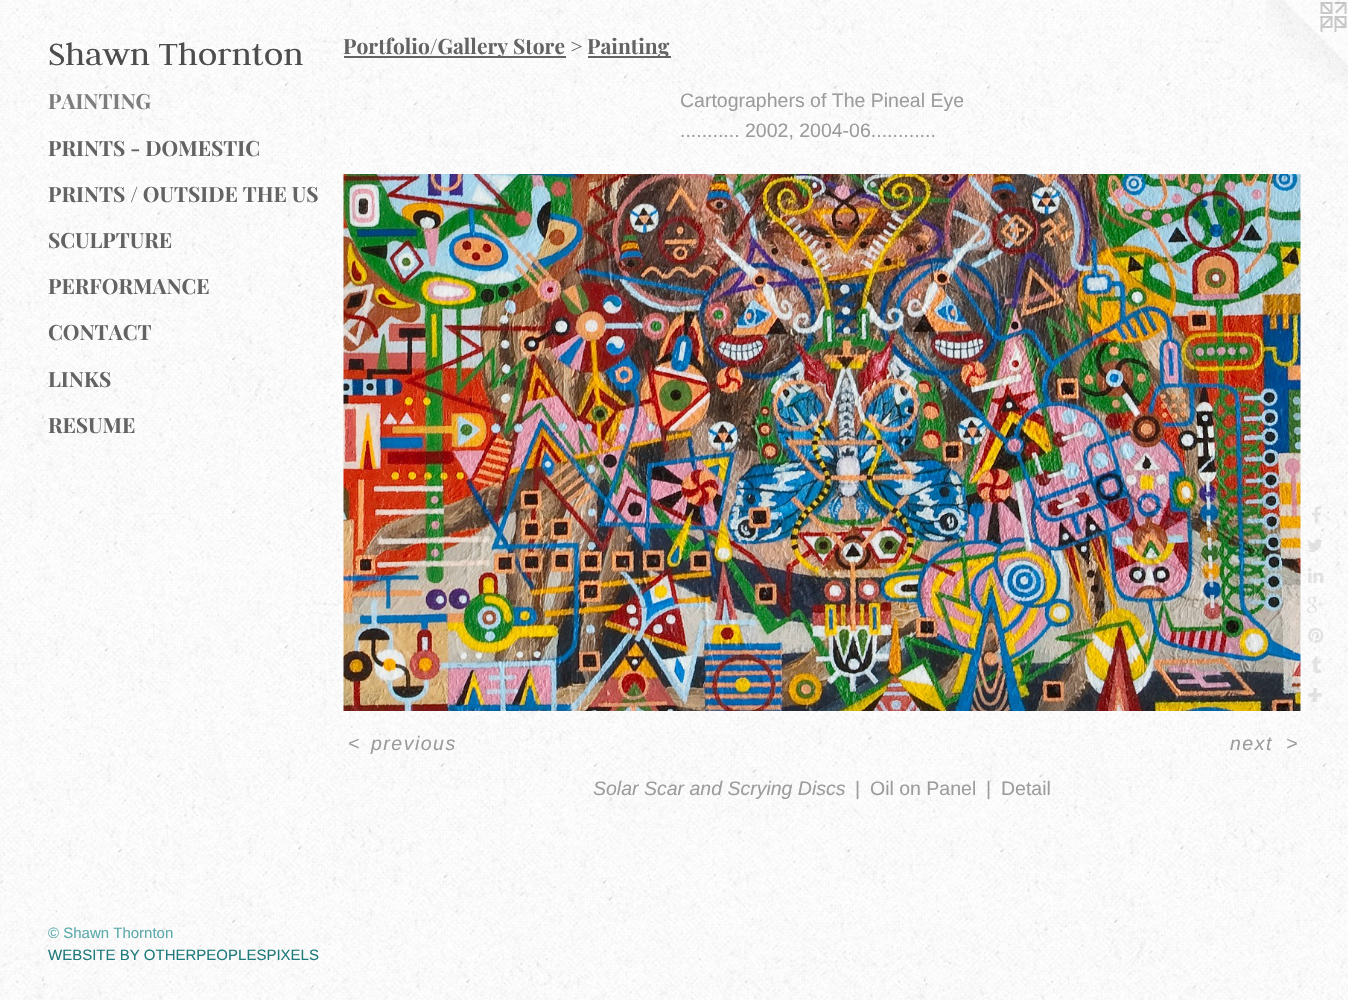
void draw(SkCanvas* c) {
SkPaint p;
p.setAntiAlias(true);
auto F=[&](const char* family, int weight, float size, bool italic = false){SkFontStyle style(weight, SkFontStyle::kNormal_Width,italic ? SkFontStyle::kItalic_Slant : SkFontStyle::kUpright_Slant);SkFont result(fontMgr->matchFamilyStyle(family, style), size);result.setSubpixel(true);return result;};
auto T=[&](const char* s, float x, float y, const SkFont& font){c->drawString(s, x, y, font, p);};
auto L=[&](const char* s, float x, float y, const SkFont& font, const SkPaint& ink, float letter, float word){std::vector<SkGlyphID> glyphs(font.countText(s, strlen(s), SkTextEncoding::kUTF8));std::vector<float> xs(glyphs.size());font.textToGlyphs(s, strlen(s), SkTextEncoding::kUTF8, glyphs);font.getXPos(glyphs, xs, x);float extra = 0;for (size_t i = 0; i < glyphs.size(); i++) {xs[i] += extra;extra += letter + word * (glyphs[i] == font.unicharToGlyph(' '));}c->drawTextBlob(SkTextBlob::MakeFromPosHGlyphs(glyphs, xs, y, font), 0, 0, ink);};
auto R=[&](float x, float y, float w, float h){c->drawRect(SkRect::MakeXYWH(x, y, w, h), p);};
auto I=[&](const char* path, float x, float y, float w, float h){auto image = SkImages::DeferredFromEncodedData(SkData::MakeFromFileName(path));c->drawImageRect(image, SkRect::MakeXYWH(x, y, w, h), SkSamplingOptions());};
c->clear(0xffffffff);
I("1.png",0,0,1348,1000);
auto f1 = F("Judson",400,36);
p.setColor(0xff4d4d4d);
T("Shawn Thornton",48,65,f1);
auto f2 = F("Playfair Display",700,21);
p.setColor(0xff7d7d7d);
T("PAINTING",48,109,f2);
p.setColor(0xff636363);
T("PRINTS - DOMESTIC",48,156,f2);
T("PRINTS / OUTSIDE THE US",48,202,f2);
T("SCULPTURE",48,248,f2);
T("PERFORMANCE",48,294,f2);
T("CONTACT",48,340,f2);
T("LINKS",48,387,f2);
T("RESUME",48,433,f2);
auto f3 = F("Liberation Sans",400,15);
p.setColor(0xff5dabac);
T("© Shawn Thornton",48,938,f3);
p.setColor(0xff1e7a7b);
T("WEBSITE BY OTHERPEOPLESPIXELS",48,960,f3);
p.setColor(0xff636363);
R(344,56,222,2);
T("Portfolio/Gallery Store >",343,54,f2);
R(588,56,83,2);
T("Painting",587,54,f2);
auto f4 = F("Liberation Sans",400,19.5);
p.setColor(0xff9c9c9c);
T("Cartographers of The Pineal Eye",680,107,f4);
T("........... 2002, 2004-06............",680,137,f4);
I("2.png",343,174,958,537);
I("3.png",1312,506,9,18);
I("4.png",1307,539,15,13);
I("5.png",1308,568,16,15);
I("6.png",1307,596,16,18);
I("7.png",1308,628,16,16);
I("8.png",1311,656,10,18);
I("9.png",1308,688,14,14);
auto f5 = F("Liberation Sans",400,19.5,true);
L("<",348,750,f5,p,1.5,0);
L("previous",371,750,f5,p,1.5,0);
L("next",1230,750,f5,p,1.5,0);
L(">",1286,750,f5,p,1.5,0);
T("Solar Scar and Scrying Discs",593,795,f5);
T("|",855,795,f4);
T("Oil on Panel",870,795,f4);
T("|",986,795,f4);
T("Detail",1001,795,f4);
I("10.png",1265,0,83,83);
}
